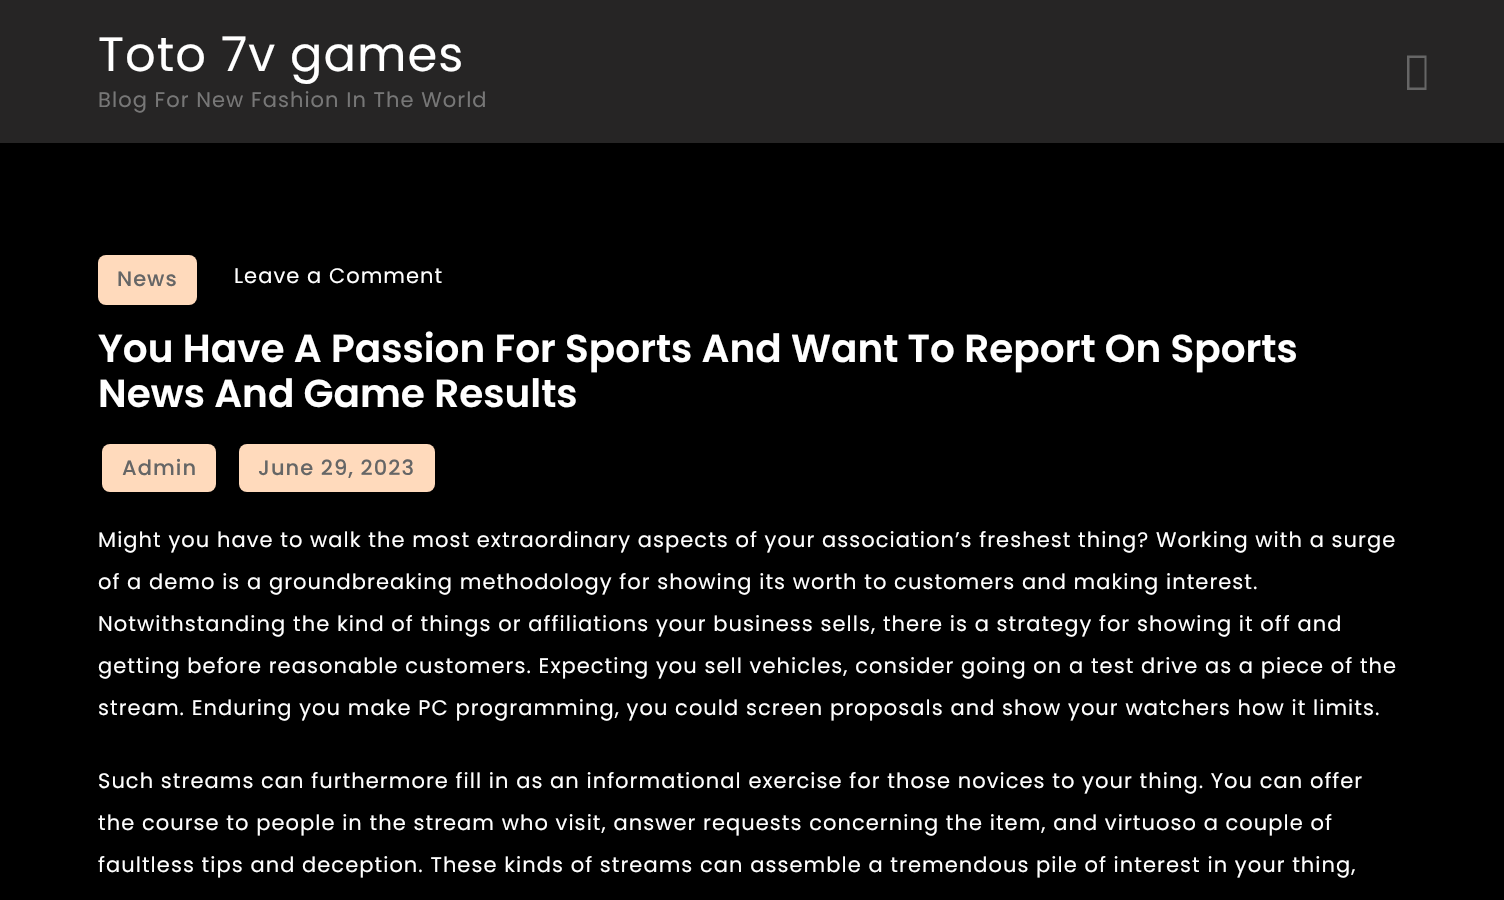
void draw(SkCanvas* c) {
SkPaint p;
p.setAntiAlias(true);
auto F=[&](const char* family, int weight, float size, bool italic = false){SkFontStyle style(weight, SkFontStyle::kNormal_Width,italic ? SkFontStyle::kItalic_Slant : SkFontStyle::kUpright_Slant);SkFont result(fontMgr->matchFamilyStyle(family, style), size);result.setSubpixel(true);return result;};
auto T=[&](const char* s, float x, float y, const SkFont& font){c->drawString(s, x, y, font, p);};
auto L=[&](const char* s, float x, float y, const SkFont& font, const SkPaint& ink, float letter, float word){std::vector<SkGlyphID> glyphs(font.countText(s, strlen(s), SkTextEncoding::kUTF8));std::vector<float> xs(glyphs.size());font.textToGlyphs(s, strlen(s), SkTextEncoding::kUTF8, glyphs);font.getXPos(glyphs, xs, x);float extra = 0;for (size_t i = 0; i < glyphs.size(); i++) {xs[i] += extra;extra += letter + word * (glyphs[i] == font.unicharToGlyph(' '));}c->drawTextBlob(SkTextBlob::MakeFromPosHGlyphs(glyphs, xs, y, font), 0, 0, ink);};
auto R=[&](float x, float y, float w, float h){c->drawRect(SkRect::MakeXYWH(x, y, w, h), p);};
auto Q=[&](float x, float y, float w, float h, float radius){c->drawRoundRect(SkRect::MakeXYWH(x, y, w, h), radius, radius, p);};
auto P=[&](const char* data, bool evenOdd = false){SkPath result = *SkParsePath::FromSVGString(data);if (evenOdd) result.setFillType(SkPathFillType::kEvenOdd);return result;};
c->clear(0xff000000);
p.setColor(0xff262525);
R(0,0,1504,143);
auto f1 = F("Poppins",400,48);
p.setColor(0xffffffff);
L("Toto 7v games",98,71,f1,p,1.05,0);
auto f2 = F("Poppins",400,21);
p.setColor(0xff777777);
L("Blog For New Fashion In The World",98,107,f2,p,1.05,0);
p.setColor(0xff666666);
c->drawPath(P("M1407 90v-34.5h19.5v34.5zm2.5-2.5h15v-29.5h-15z"),p);
p.setColor(0xffffdabc);
Q(98,255,99,50,8);
auto f3 = F("Poppins",500,21);
p.setColor(0xff666666);
L("News",117,286,f3,p,1,0);
p.setColor(0xffffffff);
L("Leave a Comment",234,283,f2,p,1.05,0);
auto f4 = F("Poppins",600,39);
T("You Have A Passion For Sports And Want To Report On Sports",98,362,f4);
T("News And Game Results",98,407,f4);
p.setColor(0xffffdabc);
Q(102,444,114,48,8);
p.setColor(0xff666666);
L("Admin",122,475,f3,p,1.05,0);
p.setColor(0xffffdabc);
Q(239,444,196,48,8);
p.setColor(0xff666666);
L("June 29, 2023",258,475,f3,p,1.05,0);
p.setColor(0xffffffff);
L("Might you have to walk the most extraordinary aspects of your association’s freshest thing? Working with a surge",98,547,f2,p,1.05,0);
L("of a demo is a groundbreaking methodology for showing its worth to customers and making interest.",98,589,f2,p,1.05,0);
L("Notwithstanding the kind of things or affiliations your business sells, there is a strategy for showing it off and",98,631,f2,p,1.05,0);
L("getting before reasonable customers. Expecting you sell vehicles, consider going on a test drive as a piece of the",98,673,f2,p,1.05,0);
L("stream. Enduring you make PC programming, you could screen proposals and show your watchers how it limits.",98,715,f2,p,1.05,0);
L("Such streams can furthermore fill in as an informational exercise for those novices to your thing. You can offer",98,788,f2,p,1.05,0);
L("the course to people in the stream who visit, answer requests concerning the item, and virtuoso a couple of",98,830,f2,p,1.05,0);
L("faultless tips and deception. These kinds of streams can assemble a tremendous pile of interest in your thing,",98,872,f2,p,1.05,0);
}
